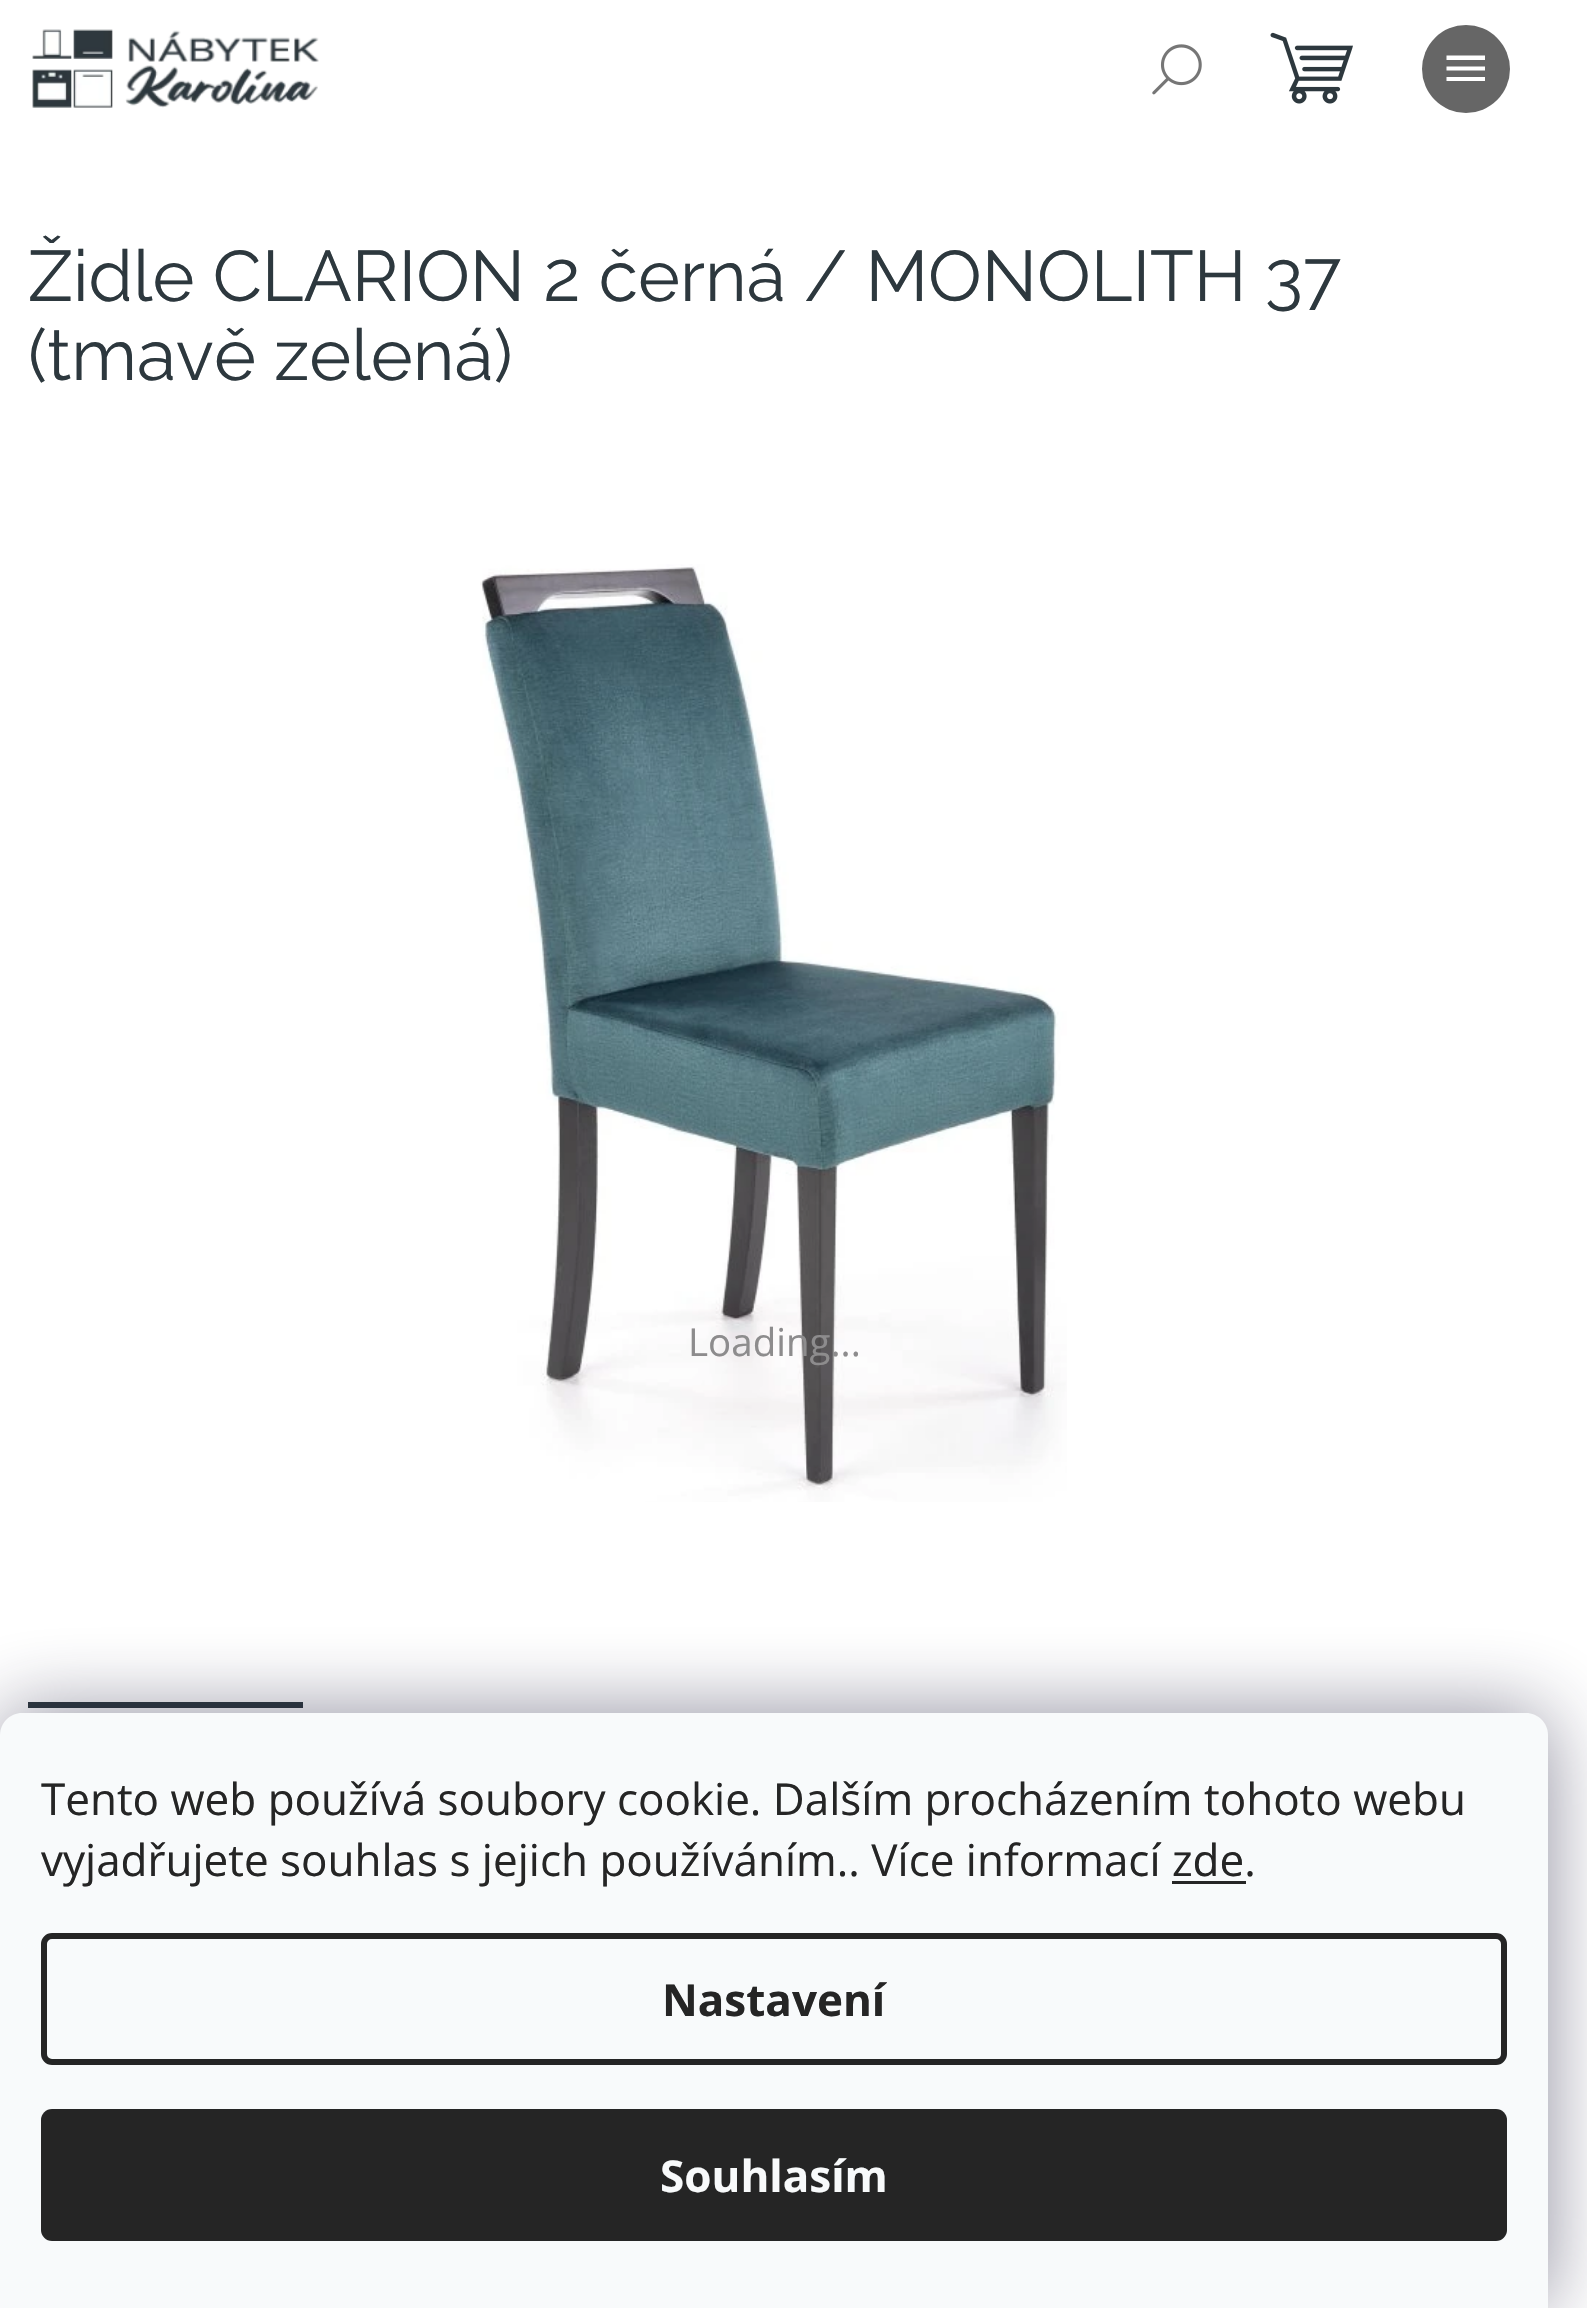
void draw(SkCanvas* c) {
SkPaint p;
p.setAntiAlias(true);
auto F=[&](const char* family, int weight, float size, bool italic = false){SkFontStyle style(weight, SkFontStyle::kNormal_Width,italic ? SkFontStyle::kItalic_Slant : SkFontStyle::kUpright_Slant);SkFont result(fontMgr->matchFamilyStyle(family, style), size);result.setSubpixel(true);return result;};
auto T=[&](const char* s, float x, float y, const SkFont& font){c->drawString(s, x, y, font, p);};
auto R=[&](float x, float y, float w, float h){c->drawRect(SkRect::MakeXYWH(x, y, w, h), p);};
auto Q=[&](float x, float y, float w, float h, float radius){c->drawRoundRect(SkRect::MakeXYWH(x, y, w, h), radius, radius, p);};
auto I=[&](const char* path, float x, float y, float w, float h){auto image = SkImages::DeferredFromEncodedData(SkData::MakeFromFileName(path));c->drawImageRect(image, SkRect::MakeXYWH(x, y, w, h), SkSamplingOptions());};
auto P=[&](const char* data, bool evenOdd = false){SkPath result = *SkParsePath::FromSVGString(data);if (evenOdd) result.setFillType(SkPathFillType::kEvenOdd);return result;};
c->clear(0xffffffff);
I("1.png",1152,44,50,51);
p.setColor(0xff666666);
c->drawCircle(1466,69,44,p);
p.setColor(0xffffffff);
c->drawPath(P("M1446.5 81h38.5v-4h-38.5zm0-10.5h38.5v-4h-38.5zm0-15v4.5h38.5v-4.5z"),p);
I("2.png",32,29,287,79);
I("3.png",1270,32,83,72);
auto f1 = F("Raleway",400,71.5);
p.setColor(0xff2d383e);
T("Židle CLARION 2 černá / MONOLITH 37",28,301,f1);
T("(tmavě zelená)",28,380,f1);
I("4.png",480,564,587,938);
auto f2 = F("Open Sans",400,38.5);
p.setColor(0xff8d8c8d);
T("Loading...",688,1356,f2);
p.setColor(0xff2d383e);
R(28,1702,275,6);
p.setColor(0x801b1939);
p.setMaskFilter(SkMaskFilter::MakeBlur(kNormal_SkBlurStyle, 41));
c->drawRoundRect(SkRect::MakeXYWH(0,1713,1548,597),22,22,p);
p.setMaskFilter(nullptr);
p.setColor(0xfff8fafb);
c->drawPath(P("M22 1713h1504c12 0 22 10 22 22v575h-1548v-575c0-12 10-22 22-22z"),p);
auto f3 = F("Open Sans",400,44);
p.setColor(0xff252525);
T("Tento web používá soubory cookie. Dalším procházením tohoto webu",41,1815,f3);
T("vyjadřujete souhlas s jejich používáním.. Více informací zde.",41,1876,f3);
R(1172,1881,74,3);
p.setStroke(true);
p.setStrokeWidth(6);
c->drawRoundRect(SkRect::MakeXYWH(44,1936,1460,126),8,8,p);
auto f4 = F("Open Sans",700,44);
p.setStroke(false);
T("Nastavení",662,2016,f4);
Q(41,2109,1466,132,11);
p.setColor(0xfff8fafb);
T("Souhlasím",660,2192,f4);
}
